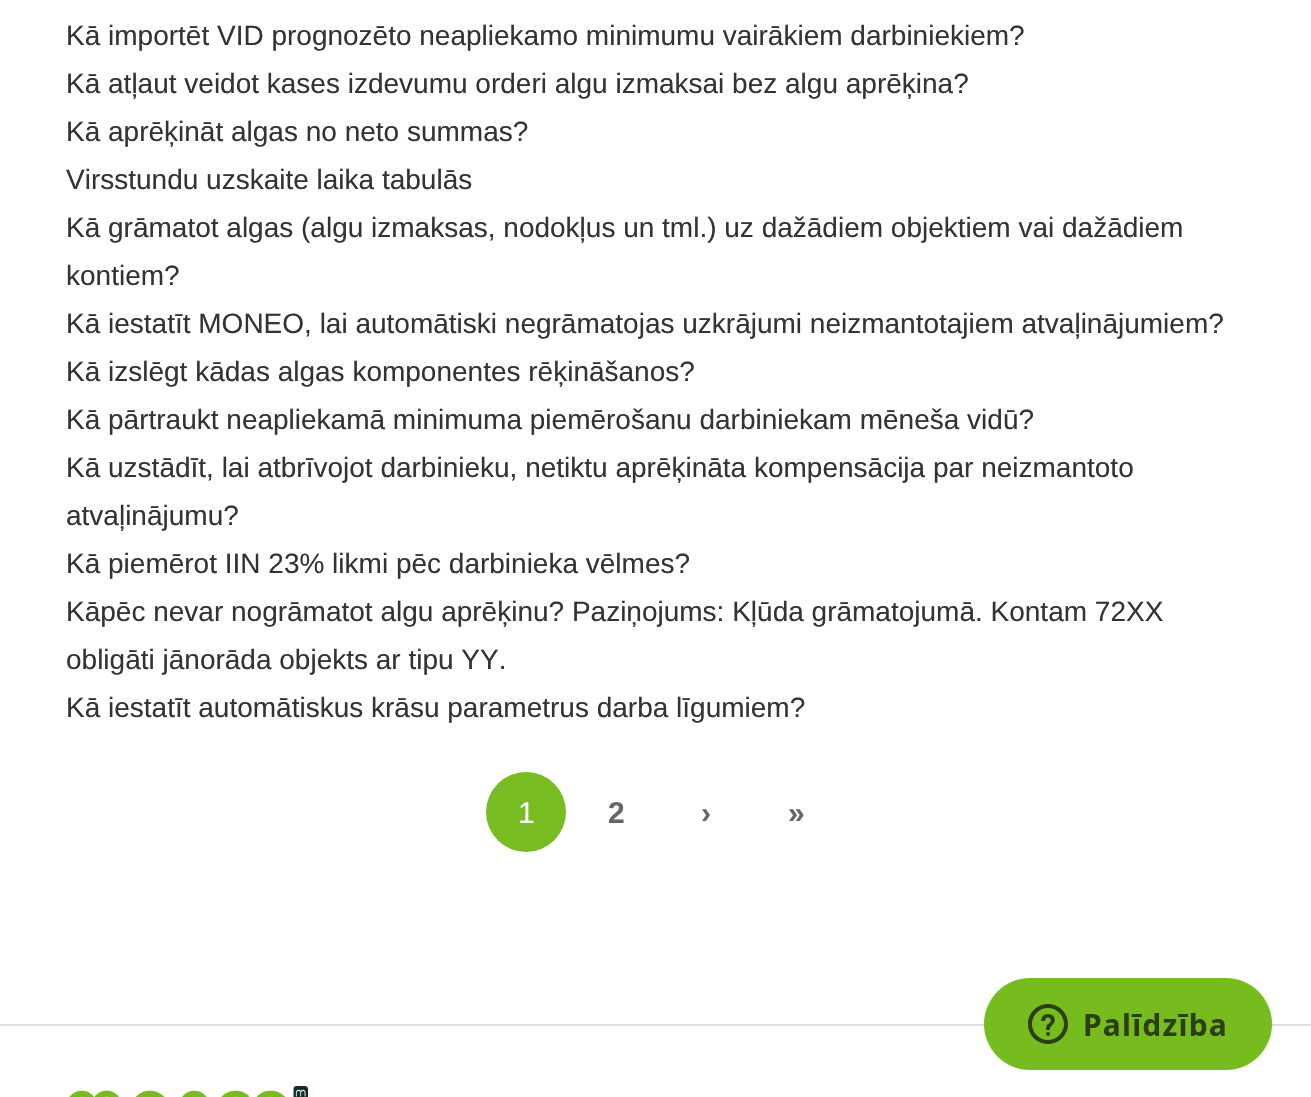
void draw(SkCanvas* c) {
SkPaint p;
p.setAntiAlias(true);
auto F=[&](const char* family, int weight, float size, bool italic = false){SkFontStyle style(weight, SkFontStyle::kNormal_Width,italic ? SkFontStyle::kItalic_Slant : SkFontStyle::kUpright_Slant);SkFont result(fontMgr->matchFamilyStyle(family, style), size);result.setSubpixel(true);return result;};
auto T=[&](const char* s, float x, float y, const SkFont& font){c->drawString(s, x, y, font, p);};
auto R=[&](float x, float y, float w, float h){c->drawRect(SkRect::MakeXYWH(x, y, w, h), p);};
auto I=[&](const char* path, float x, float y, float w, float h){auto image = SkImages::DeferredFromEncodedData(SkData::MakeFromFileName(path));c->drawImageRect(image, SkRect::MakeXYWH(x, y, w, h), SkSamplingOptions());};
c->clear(0xffffffff);
auto f1 = F("Liberation Sans",400,28);
p.setColor(0xff333333);
T("Kā importēt VID prognozēto neapliekamo minimumu vairākiem darbiniekiem?",66,45,f1);
T("Kā atļaut veidot kases izdevumu orderi algu izmaksai bez algu aprēķina?",66,93,f1);
T("Kā aprēķināt algas no neto summas?",66,141,f1);
T("Virsstundu uzskaite laika tabulās",66,189,f1);
T("Kā grāmatot algas (algu izmaksas, nodokļus un tml.) uz dažādiem objektiem vai dažādiem",66,237,f1);
T("kontiem?",66,285,f1);
T("Kā iestatīt MONEO, lai automātiski negrāmatojas uzkrājumi neizmantotajiem atvaļinājumiem?",66,333,f1);
T("Kā izslēgt kādas algas komponentes rēķināšanos?",66,381,f1);
T("Kā pārtraukt neapliekamā minimuma piemērošanu darbiniekam mēneša vidū?",66,429,f1);
T("Kā uzstādīt, lai atbrīvojot darbinieku, netiktu aprēķināta kompensācija par neizmantoto",66,477,f1);
T("atvaļinājumu?",66,525,f1);
T("Kā piemērot IIN 23% likmi pēc darbinieka vēlmes?",66,573,f1);
T("Kāpēc nevar nogrāmatot algu aprēķinu? Paziņojums: Kļūda grāmatojumā. Kontam 72XX",66,621,f1);
T("obligāti jānorāda objekts ar tipu YY.",66,669,f1);
T("Kā iestatīt automātiskus krāsu parametrus darba līgumiem?",66,717,f1);
p.setColor(0xff77bc20);
c->drawCircle(526,812,40,p);
auto f2 = F("Liberation Sans",400,30);
p.setColor(0xffffffff);
T("1",518,823,f2);
auto f3 = F("Liberation Sans",700,30);
p.setColor(0xff666666);
T("2",608,823,f3);
T("›",701,823,f3);
T("»",788,823,f3);
p.setColor(0xffdddddd);
R(0,1024,1311,2);
I("1.png",984,978,288,92);
I("2.png",69,1086,239,11);
}
